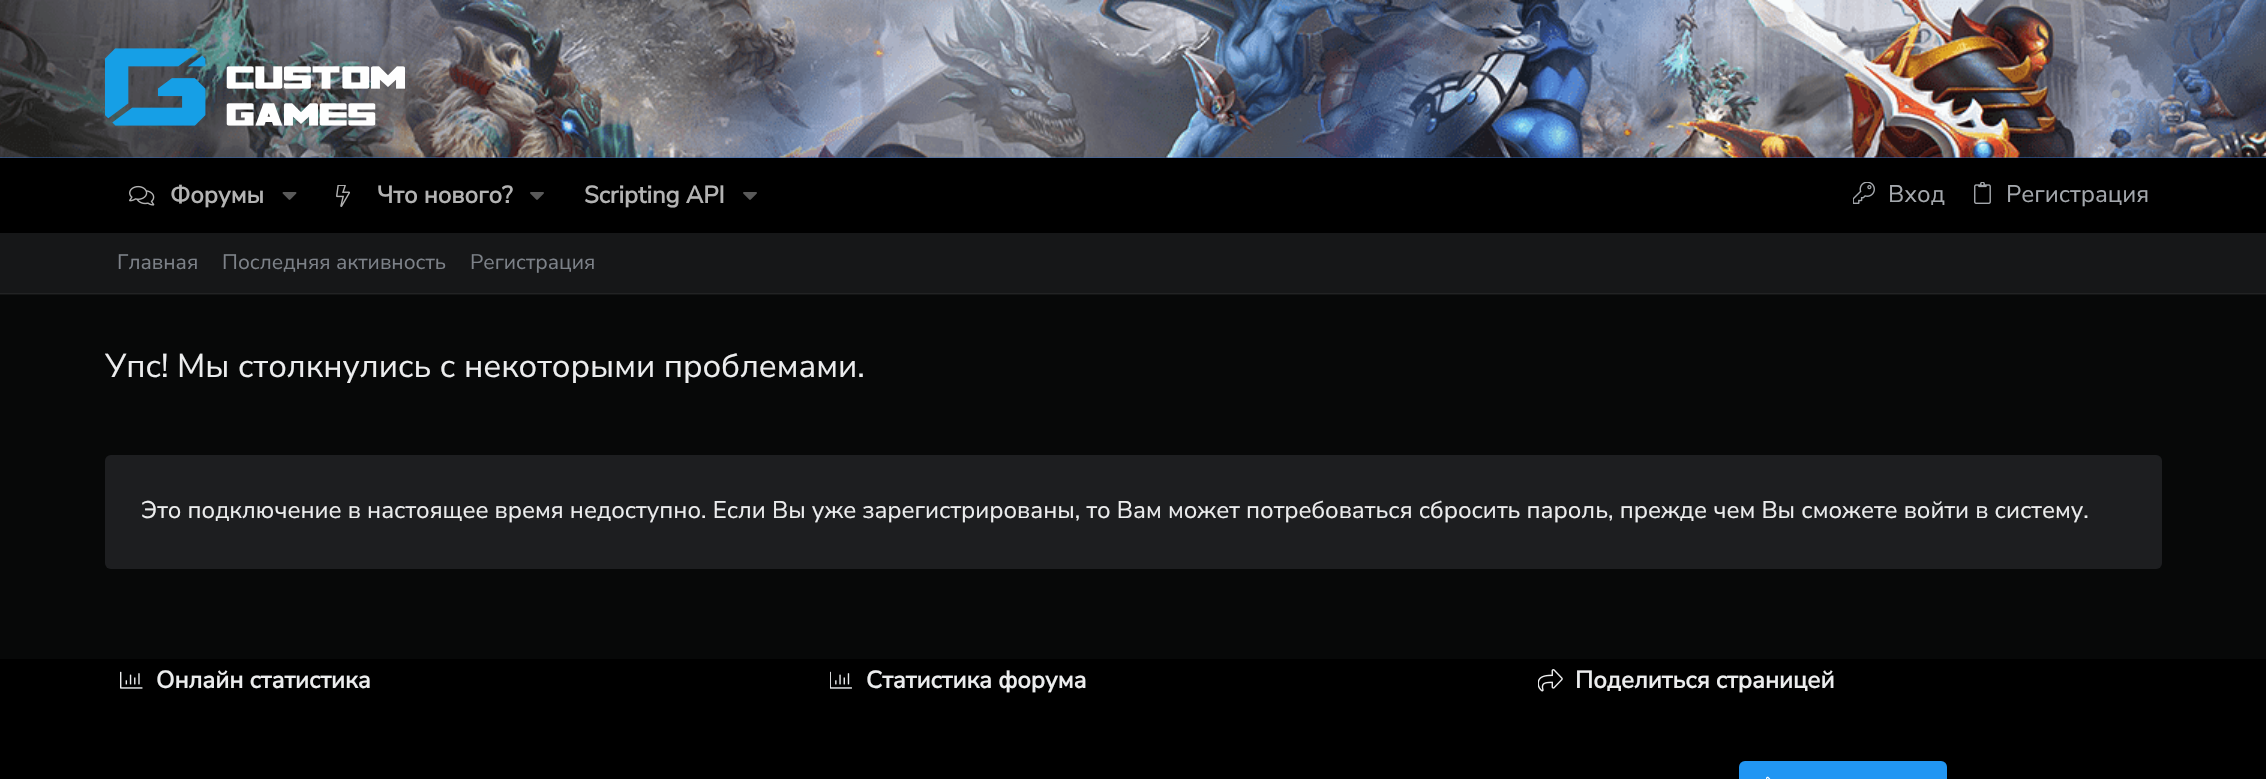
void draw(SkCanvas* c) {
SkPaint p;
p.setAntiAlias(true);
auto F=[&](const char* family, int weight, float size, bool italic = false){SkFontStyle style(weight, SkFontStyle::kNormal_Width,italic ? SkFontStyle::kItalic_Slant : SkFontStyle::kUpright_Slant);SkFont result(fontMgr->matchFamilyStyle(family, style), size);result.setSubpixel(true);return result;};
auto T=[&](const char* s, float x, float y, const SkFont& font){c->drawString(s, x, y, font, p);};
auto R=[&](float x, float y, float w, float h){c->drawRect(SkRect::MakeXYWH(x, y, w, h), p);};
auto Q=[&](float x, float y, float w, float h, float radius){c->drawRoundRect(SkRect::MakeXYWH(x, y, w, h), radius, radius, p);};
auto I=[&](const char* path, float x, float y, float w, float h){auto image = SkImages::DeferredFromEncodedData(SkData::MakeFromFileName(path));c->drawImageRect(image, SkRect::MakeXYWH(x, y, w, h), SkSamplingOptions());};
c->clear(0xff070808);
p.setColor(0xff131414);
R(0,294,2266,1);
p.setColor(0xff2f66b9);
R(0,0,2266,158);
I("1.png",0,0,2266,158);
I("2.png",105,48,300,78);
p.setColor(0xffa4a8ad);
c->drawCircle(2116,94,4,p);
p.setColor(0xff000000);
R(0,158,2266,75);
I("3.png",129,185,26,21);
auto f1 = F("Nunito Sans",700,24);
p.setColor(0xffb3b3b3);
T("Форумы",170,203,f1);
I("4.png",282,192,15,8);
I("5.png",336,185,14,22);
T("Что нового?",377,203,f1);
I("6.png",530,192,14,8);
T("Scripting API",584,203,f1);
I("6.png",743,192,14,8);
I("7.png",1853,182,22,22);
auto f2 = F("Nunito Sans",400,24);
p.setColor(0xffa4a8ad);
T("Вход",1888,202,f2);
I("8.png",1974,182,17,22);
T("Регистрация",2006,202,f2);
p.setColor(0xff161718);
R(0,233,2266,60);
p.setColor(0xff222324);
R(0,293,2266,1);
auto f3 = F("Nunito Sans",400,21);
p.setColor(0xff7c8188);
T("Главная",117,269,f3);
T("Последняя активность",222,269,f3);
T("Регистрация",470,269,f3);
auto f4 = F("Nunito Sans",400,33);
p.setColor(0xffecedee);
T("Упс! Мы столкнулись с некоторыми проблемами.",105,377,f4);
p.setColor(0xff1d1e20);
Q(105,455,2057,114,6);
p.setColor(0xffecedee);
T("Это подключение в настоящее время недоступно. Если Вы уже зарегистрированы, то Вам может потребоваться сбросить пароль, прежде чем Вы сможете войти в систему.",141,518,f2);
p.setColor(0xff000000);
R(0,659,2266,120);
I("9.png",120,671,23,18);
p.setColor(0xffecedee);
T("Онлайн статистика",156,688,f1);
I("10.png",830,671,22,18);
T("Статистика форума",866,688,f1);
I("11.png",1538,669,25,23);
T("Поделиться страницей",1575,688,f1);
p.setColor(0xff2196f3);
Q(1739,761,208,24,6);
I("12.png",1766,776,5,3);
}
